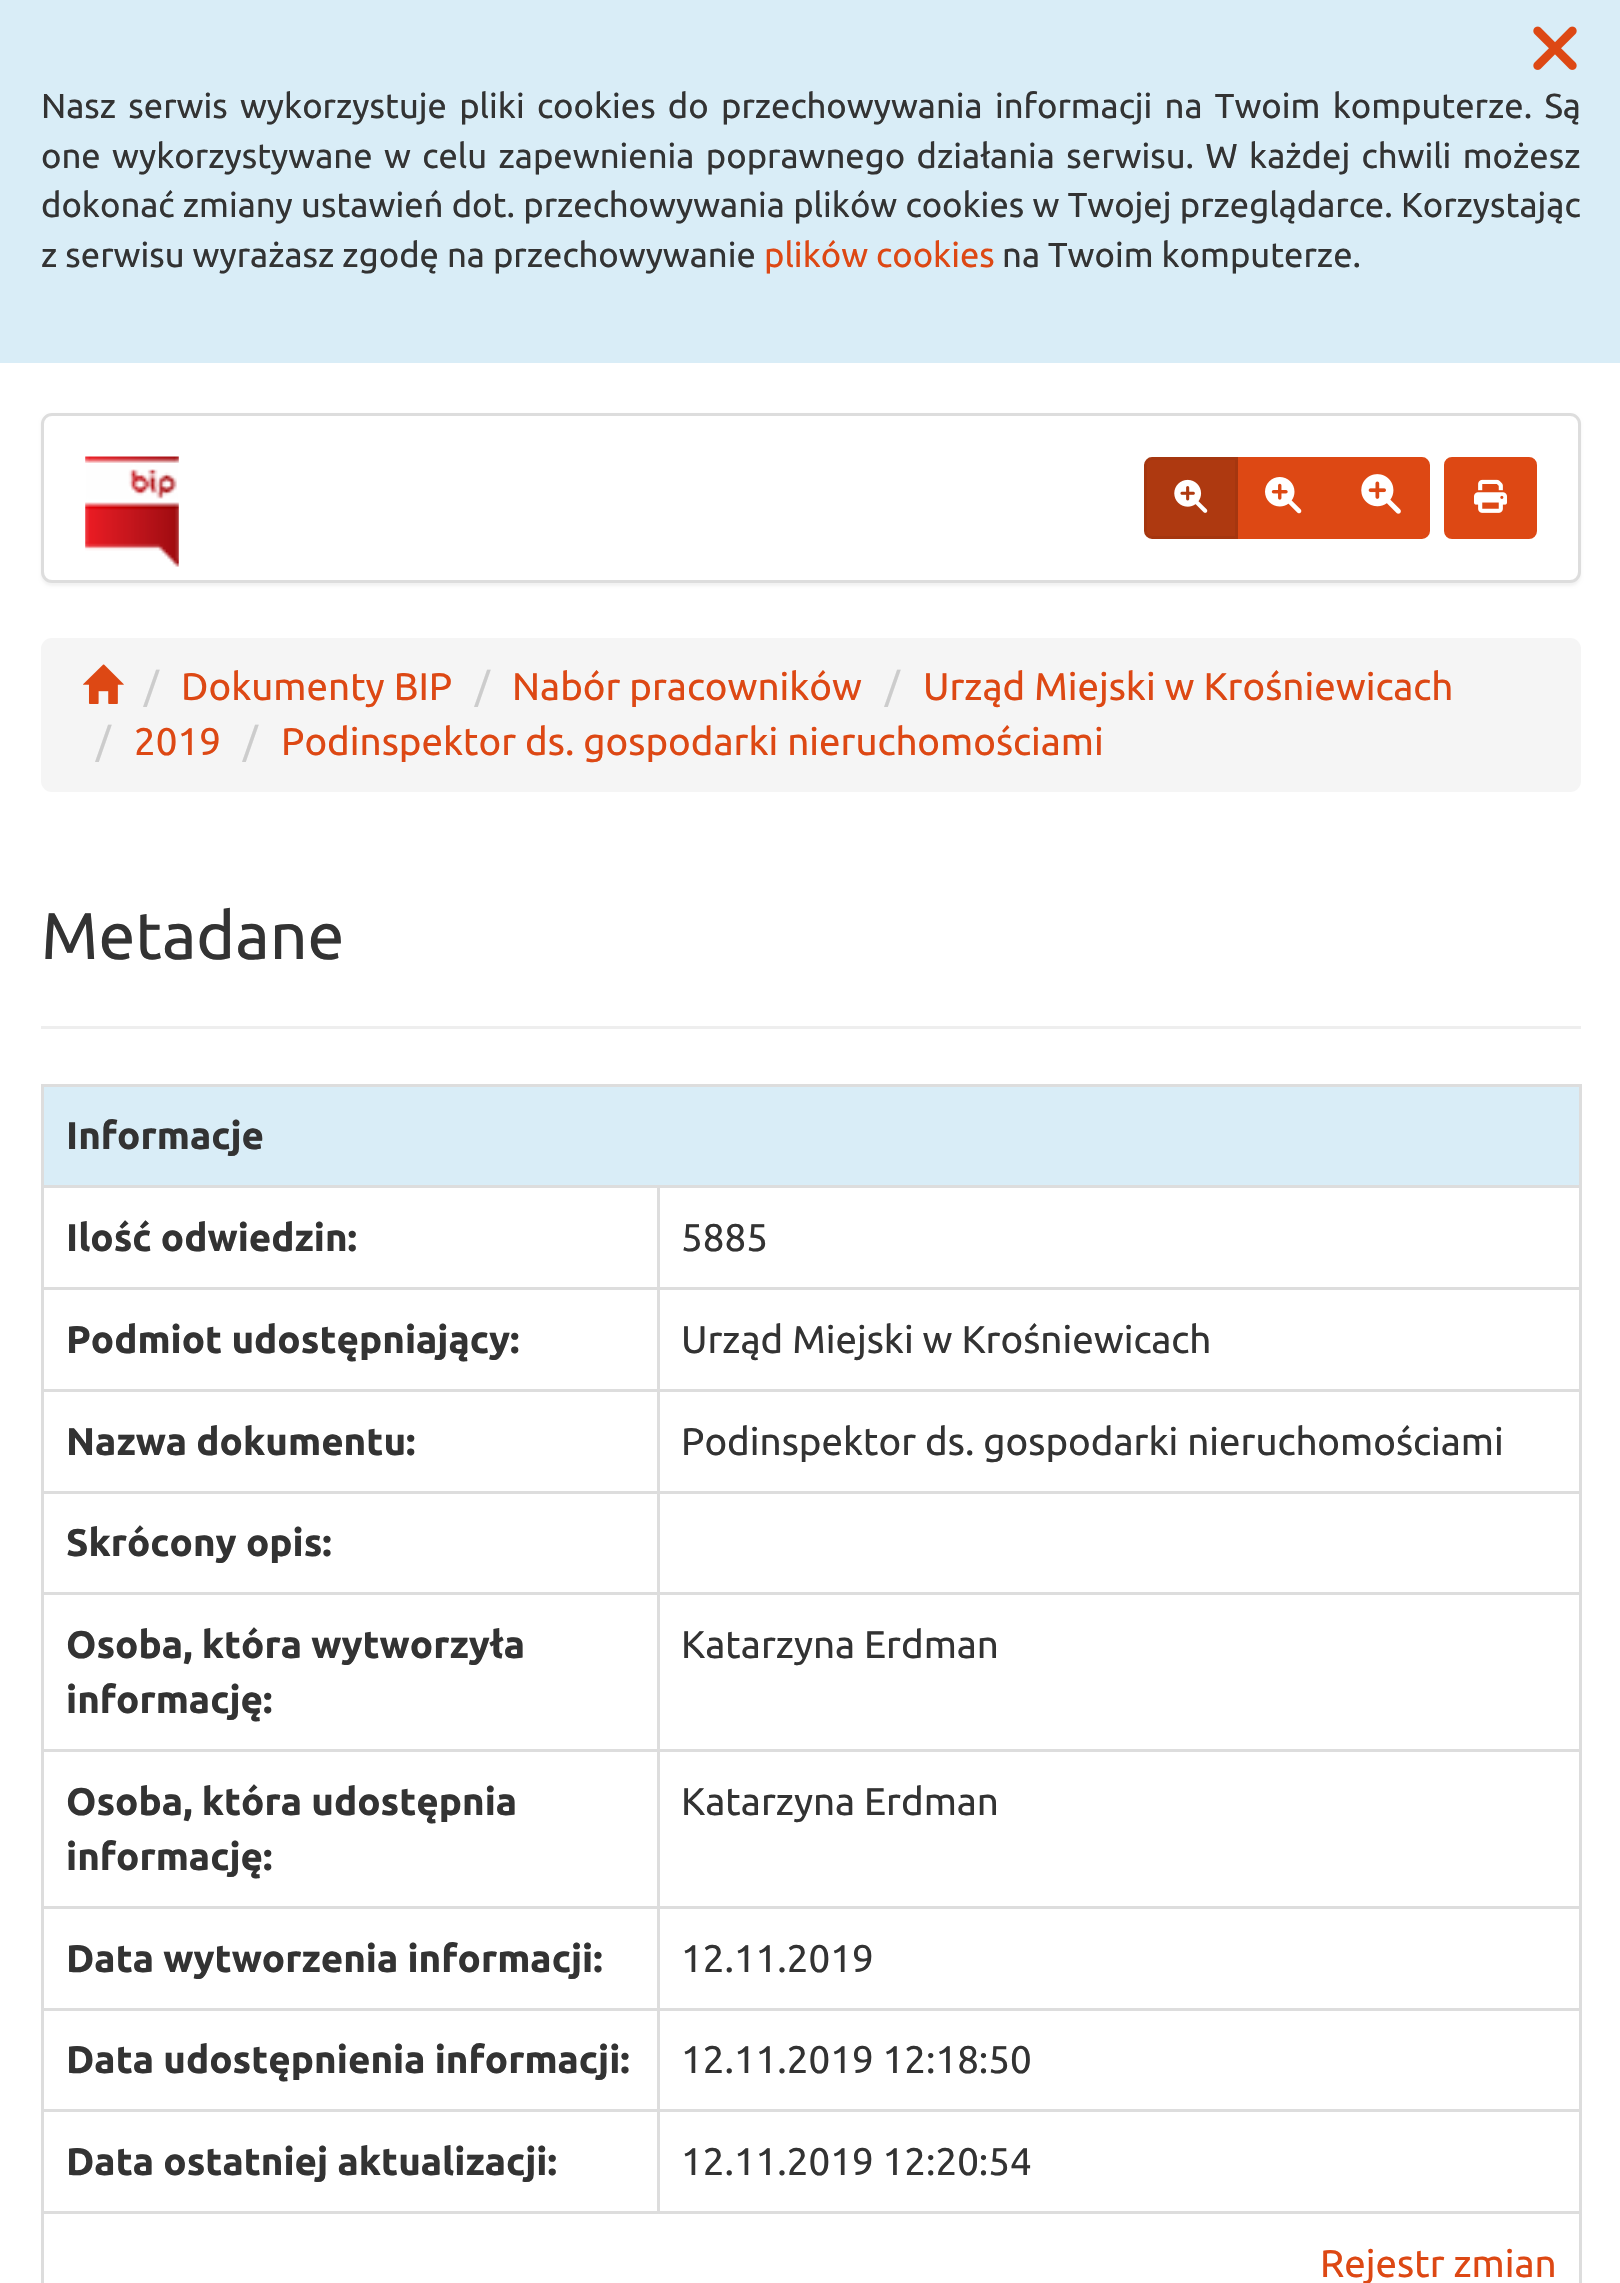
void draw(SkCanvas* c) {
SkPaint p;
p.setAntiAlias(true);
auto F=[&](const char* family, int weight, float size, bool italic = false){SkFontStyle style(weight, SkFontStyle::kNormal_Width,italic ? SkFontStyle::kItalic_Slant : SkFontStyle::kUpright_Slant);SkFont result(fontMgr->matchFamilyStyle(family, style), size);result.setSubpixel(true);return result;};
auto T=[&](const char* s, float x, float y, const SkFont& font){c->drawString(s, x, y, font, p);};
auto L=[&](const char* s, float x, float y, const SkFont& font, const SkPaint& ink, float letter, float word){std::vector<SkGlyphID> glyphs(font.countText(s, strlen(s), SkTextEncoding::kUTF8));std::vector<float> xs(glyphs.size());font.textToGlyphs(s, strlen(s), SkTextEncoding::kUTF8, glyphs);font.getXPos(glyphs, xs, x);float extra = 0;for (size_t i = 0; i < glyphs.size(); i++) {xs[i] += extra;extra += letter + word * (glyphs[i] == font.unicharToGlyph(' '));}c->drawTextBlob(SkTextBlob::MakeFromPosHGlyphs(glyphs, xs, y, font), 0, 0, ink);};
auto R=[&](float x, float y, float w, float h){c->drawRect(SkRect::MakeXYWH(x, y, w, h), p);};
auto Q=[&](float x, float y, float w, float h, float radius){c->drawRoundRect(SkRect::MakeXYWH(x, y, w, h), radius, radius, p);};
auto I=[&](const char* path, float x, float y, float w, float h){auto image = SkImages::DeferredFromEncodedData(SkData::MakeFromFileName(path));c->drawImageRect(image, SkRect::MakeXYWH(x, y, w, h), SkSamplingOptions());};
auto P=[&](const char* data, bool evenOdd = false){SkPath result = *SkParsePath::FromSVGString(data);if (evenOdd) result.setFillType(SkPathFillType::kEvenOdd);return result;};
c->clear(0xffffffff);
p.setColor(0xffd9edf7);
R(0,0,1620,363);
I("1.png",1533,26,44,44);
auto f1 = F("Ubuntu",400,34.65);
p.setColor(0xff333333);
L("Nasz serwis wykorzystuje pliki cookies do przechowywania informacji na Twoim komputerze. Są",41,118,f1,p,0,4.25);
L("one wykorzystywane w celu zapewnienia poprawnego działania serwisu. W każdej chwili możesz",41,168,f1,p,0,3.4);
L("dokonać zmiany ustawień dot. przechowywania plików cookies w Twojej przeglądarce. Korzystając",41,217,f1,p,0,.25);
T("z serwisu wyrażasz zgodę na przechowywanie",41,267,f1);
p.setColor(0xffdd4814);
T("plików cookies",764,267,f1);
p.setColor(0xff333333);
T("na Twoim komputerze.",1002,267,f1);
p.setColor(0x0d000000);
p.setMaskFilter(SkMaskFilter::MakeBlur(kNormal_SkBlurStyle, 1.5));
c->drawRoundRect(SkRect::MakeXYWH(41,415,1540,171),11,11,p);
p.setMaskFilter(nullptr);
p.setColor(0xffffffff);
c->drawRoundRect(SkRect::MakeXYWH(42.5,414.5,1537,167),9.5,9.5,p);
p.setStroke(true);
p.setStrokeWidth(3);
p.setColor(0xffdddddd);
c->drawRoundRect(SkRect::MakeXYWH(42.5,414.5,1537,167),9.5,9.5,p);
I("2.png",85,456,94,111);
p.setStroke(false);
p.setColor(0xffae3910);
c->drawPath(P("M1152 458.5h84.5v79h-84.5c-3.5 0-6.5-3-6.5-6.5v-66c0-3.5 3-6.5 6.5-6.5z"),p);
p.setStroke(true);
p.setColor(0xffa5360f);
c->drawPath(P("M1152 458.5h84.5v79h-84.5c-3.5 0-6.5-3-6.5-6.5v-66c0-3.5 3-6.5 6.5-6.5z"),p);
I("3.png",1174,479,34,34);
p.setStroke(false);
p.setColor(0xffdd4814);
R(1238,457,93,82);
I("4.png",1265,477,37,37);
c->drawPath(P("M1332.5 458.5h89.5c3.5 0 6.5 3 6.5 6.5v66c0 3.5-3 6.5-6.5 6.5h-89.5z"),p);
p.setStroke(true);
c->drawPath(P("M1332.5 458.5h89.5c3.5 0 6.5 3 6.5 6.5v66c0 3.5-3 6.5-6.5 6.5h-89.5z"),p);
I("5.png",1361,474,40,40);
p.setStroke(false);
c->drawRoundRect(SkRect::MakeXYWH(1445.5,458.5,90,79),6.5,6.5,p);
p.setStroke(true);
c->drawRoundRect(SkRect::MakeXYWH(1445.5,458.5,90,79),6.5,6.5,p);
I("6.png",1474,479,33,34);
p.setStroke(false);
p.setColor(0xfff5f5f5);
Q(41,638,1540,154,11);
I("7.png",83,664,41,40);
auto f2 = F("Ubuntu",400,38.5);
p.setColor(0xffcccccc);
T("/",144,700,f2);
p.setColor(0xffdd4814);
T("Dokumenty BIP",181,700,f2);
p.setColor(0xffcccccc);
T("/",475,700,f2);
p.setColor(0xffdd4814);
T("Nabór pracowników",512,700,f2);
p.setColor(0xffcccccc);
T("/",885,700,f2);
p.setColor(0xffdd4814);
T("Urząd Miejski w Krośniewicach",923,700,f2);
p.setColor(0xffcccccc);
T("/",96,755,f2);
p.setColor(0xffdd4814);
T("2019",134,755,f2);
p.setColor(0xffcccccc);
T("/",243,755,f2);
p.setColor(0xffdd4814);
T("Podinspektor ds. gospodarki nieruchomościami",281,755,f2);
p.setColor(0xffeeeeee);
R(41,1026,1540,3);
auto f3 = F("Ubuntu",400,66);
p.setColor(0xff333333);
T("Metadane",41,959,f3);
p.setColor(0xffdddddd);
R(41,1084,1540,3);
R(1579,1084,3,1199);
R(41,1084,3,1199);
p.setColor(0xffd9edf7);
R(44,1087,1535,98);
auto f4 = F("Ubuntu",700,38.5);
p.setColor(0xff333333);
T("Informacje",66,1149,f4);
p.setColor(0xffdddddd);
R(657,1185,924,3);
R(657,1287,924,3);
R(657,1389,924,3);
R(657,1491,924,3);
R(657,1592,924,3);
R(657,1749,924,3);
R(657,1906,924,3);
R(657,2008,924,3);
R(657,2109,924,3);
R(41,2211,1540,3);
R(657,2109,3,105);
R(41,2109,619,3);
R(657,2008,3,104);
R(41,2008,619,3);
R(657,1906,3,104);
R(41,1906,619,3);
R(657,1749,3,160);
R(41,1749,619,3);
R(657,1592,3,160);
R(41,1592,619,3);
R(657,1491,3,104);
R(41,1491,619,3);
R(657,1389,3,104);
R(41,1389,619,3);
R(657,1287,3,105);
R(41,1287,619,3);
R(657,1185,3,105);
R(41,1185,619,3);
p.setColor(0xff333333);
T("Ilość odwiedzin:",66,1251,f4);
T("5885",681,1251,f2);
T("Podmiot udostępniający:",66,1353,f4);
T("Urząd Miejski w Krośniewicach",681,1353,f2);
T("Nazwa dokumentu:",66,1455,f4);
T("Podinspektor ds. gospodarki nieruchomościami",681,1455,f2);
T("Skrócony opis:",66,1556,f4);
T("Osoba, która wytworzyła",66,1658,f4);
T("informację:",66,1713,f4);
T("Katarzyna Erdman",681,1658,f2);
T("Osoba, która udostępnia",66,1815,f4);
T("informację:",66,1870,f4);
T("Katarzyna Erdman",681,1815,f2);
T("Data wytworzenia informacji:",66,1972,f4);
T("12.11.2019",681,1972,f2);
T("Data udostępnienia informacji:",66,2073,f4);
T("12.11.2019 12:18:50",681,2073,f2);
T("Data ostatniej aktualizacji:",66,2175,f4);
T("12.11.2019 12:20:54",681,2175,f2);
p.setColor(0xffdd4814);
T("Rejestr zmian",1320,2277,f2);
}
